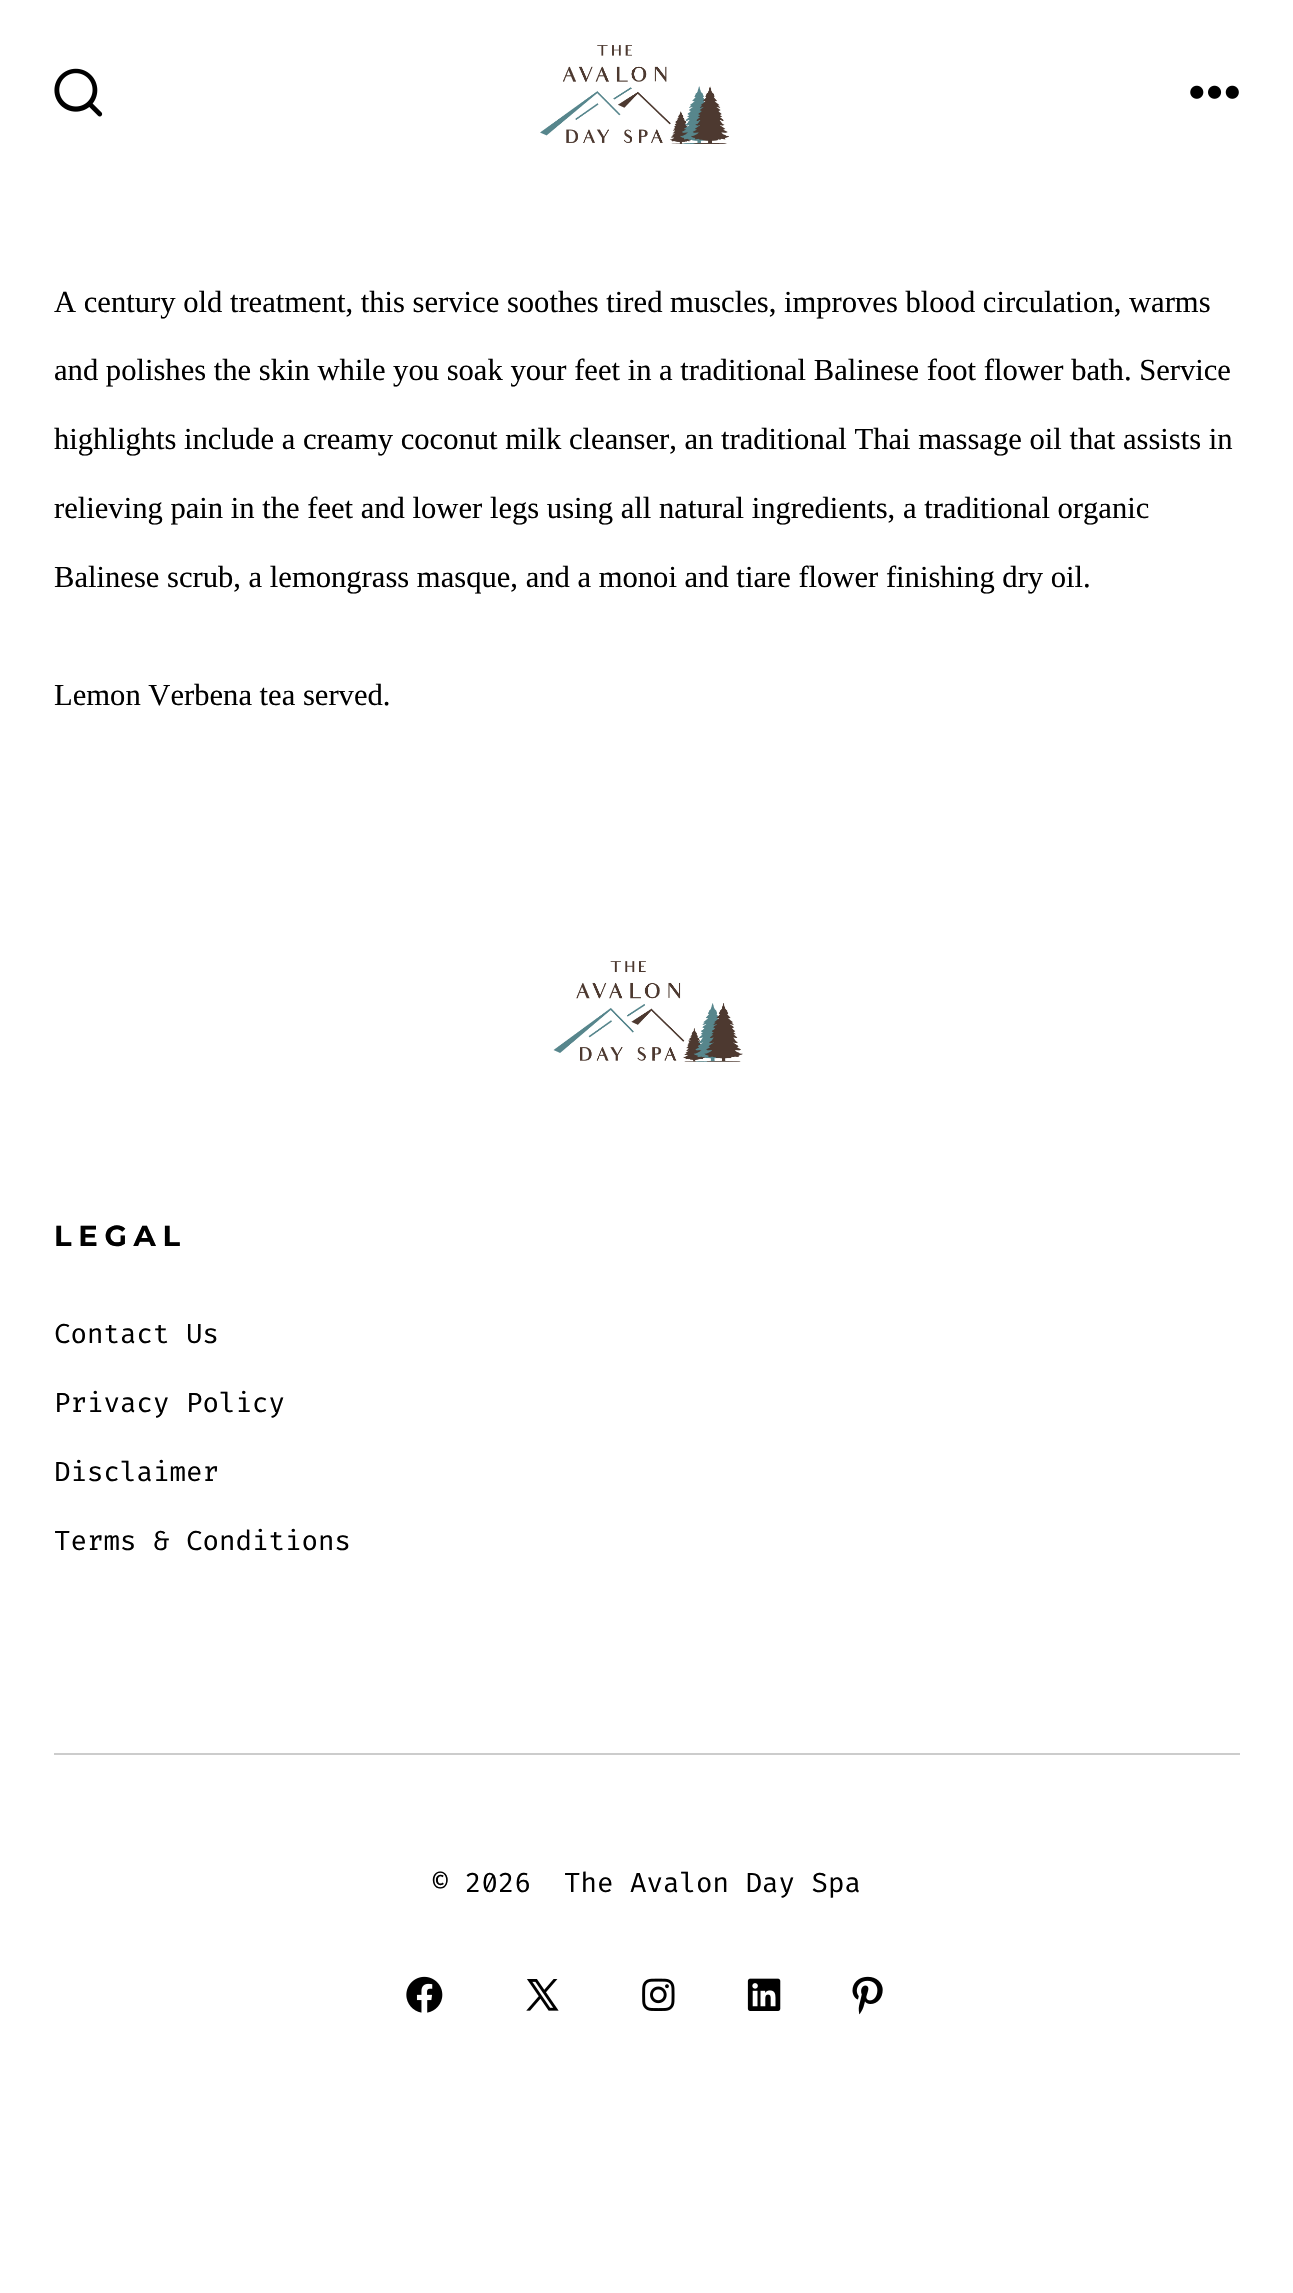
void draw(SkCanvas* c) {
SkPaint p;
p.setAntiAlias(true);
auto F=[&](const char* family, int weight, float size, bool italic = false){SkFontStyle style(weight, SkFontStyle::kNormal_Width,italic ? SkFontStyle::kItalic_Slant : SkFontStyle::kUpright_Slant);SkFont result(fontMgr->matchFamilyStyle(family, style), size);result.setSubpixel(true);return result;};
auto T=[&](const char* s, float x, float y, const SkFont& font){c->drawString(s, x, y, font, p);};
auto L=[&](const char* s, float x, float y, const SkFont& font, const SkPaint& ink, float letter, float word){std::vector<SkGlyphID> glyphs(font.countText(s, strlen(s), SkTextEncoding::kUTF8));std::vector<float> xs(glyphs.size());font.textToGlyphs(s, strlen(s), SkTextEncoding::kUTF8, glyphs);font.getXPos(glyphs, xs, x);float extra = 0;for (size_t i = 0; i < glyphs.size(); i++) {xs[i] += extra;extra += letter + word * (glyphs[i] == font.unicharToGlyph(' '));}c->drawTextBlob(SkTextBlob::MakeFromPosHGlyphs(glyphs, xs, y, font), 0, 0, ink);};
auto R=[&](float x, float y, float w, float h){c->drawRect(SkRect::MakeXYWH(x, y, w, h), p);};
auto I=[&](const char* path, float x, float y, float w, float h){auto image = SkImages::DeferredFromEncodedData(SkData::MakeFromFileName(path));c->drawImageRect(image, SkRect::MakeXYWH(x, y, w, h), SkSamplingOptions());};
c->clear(0xffffffff);
I("1.png",54,68,49,49);
I("2.png",540,45,189,99);
I("3.png",1190,85,49,14);
auto f1 = F("Liberation Serif",400,30.6);
p.setColor(0xff000000);
T("A century old treatment, this service soothes tired muscles, improves blood circulation, warms",54,312,f1);
T("and polishes the skin while you soak your feet in a traditional Balinese foot flower bath. Service",54,380,f1);
T("highlights include a creamy coconut milk cleanser, an traditional Thai massage oil that assists in",54,449,f1);
T("relieving pain in the feet and lower legs using all natural ingredients, a traditional organic",54,518,f1);
T("Balinese scrub, a lemongrass masque, and a monoi and tiare flower finishing dry oil.",54,587,f1);
T("Lemon Verbena tea served.",54,705,f1);
I("4.png",553,961,190,101);
auto f2 = F("Montserrat",700,29);
L("LEGAL",54,1246,f2,p,6.75,0);
auto f3 = F("Fira Code",400,27.5);
T("Contact Us",54,1343,f3);
T("Privacy Policy",54,1412,f3);
T("Disclaimer",54,1481,f3);
T("Terms & Conditions",54,1550,f3);
p.setColor(0xffcccccc);
R(54,1753,1186,2);
p.setColor(0xff000000);
T("© 2026",432,1892,f3);
T("The Avalon Day Spa",564,1892,f3);
I("5.png",406,1976,37,37);
I("6.png",526,1979,33,32);
I("7.png",642,1978,33,33);
I("8.png",747,1978,34,33);
I("9.png",852,1976,31,39);
}
